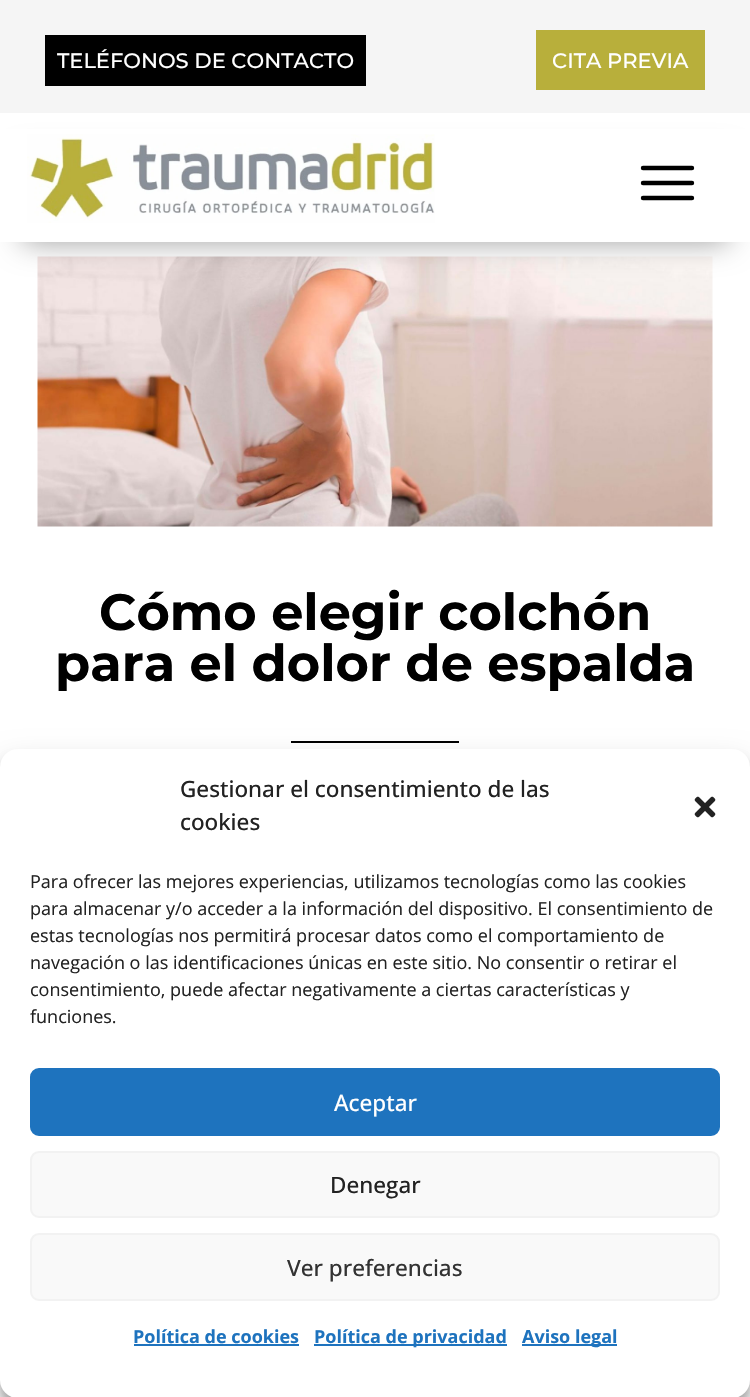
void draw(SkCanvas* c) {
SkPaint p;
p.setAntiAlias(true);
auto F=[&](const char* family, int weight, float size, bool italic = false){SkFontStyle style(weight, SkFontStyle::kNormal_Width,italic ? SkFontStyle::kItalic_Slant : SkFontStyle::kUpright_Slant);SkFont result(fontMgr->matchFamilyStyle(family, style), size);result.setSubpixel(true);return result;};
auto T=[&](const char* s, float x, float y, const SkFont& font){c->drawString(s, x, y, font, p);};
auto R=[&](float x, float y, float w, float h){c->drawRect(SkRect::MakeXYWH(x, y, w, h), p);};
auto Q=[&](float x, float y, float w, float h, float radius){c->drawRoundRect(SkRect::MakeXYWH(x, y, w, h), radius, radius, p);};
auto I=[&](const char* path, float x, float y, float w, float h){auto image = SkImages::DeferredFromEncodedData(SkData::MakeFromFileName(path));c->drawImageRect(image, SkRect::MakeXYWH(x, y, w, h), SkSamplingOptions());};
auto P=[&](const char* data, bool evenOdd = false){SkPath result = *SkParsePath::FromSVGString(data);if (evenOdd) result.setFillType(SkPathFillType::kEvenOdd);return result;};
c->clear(0xffffffff);
p.setColor(0xfff5f5f5);
R(0,0,750,113);
p.setColor(0xff000000);
R(45,35,321,51);
auto f1 = F("Montserrat",500,21);
p.setColor(0xffffffff);
T("TELÉFONOS DE CONTACTO",57,68,f1);
p.setColor(0xffb8af3b);
R(536,30,169,60);
p.setColor(0xffffffff);
T("CITA PREVIA",552,68,f1);
I("2.png",37,256,676,271);
p.setColor(0x61000000);
p.setMaskFilter(SkMaskFilter::MakeBlur(kNormal_SkBlurStyle, 15));
c->drawRect(SkRect::MakeXYWH(23,158,705,84),p);
p.setMaskFilter(nullptr);
p.setColor(0xffffffff);
R(0,129,750,113);
I("1.png",27,134,408,89);
p.setStroke(true);
p.setStrokeWidth(4.4);
p.setStrokeCap(SkPaint::kRound_Cap);
p.setColor(0xff000000);
c->drawPath(P("M643 168h49m-49 15h49m-49 15h49"),p);
auto f2 = F("Montserrat",700,51);
p.setStroke(false);
T("Cómo elegir colchón",99,630,f2);
T("para el dolor de espalda",55,681,f2);
R(291,741,168,2);
p.setColor(0x3b000000);
p.setMaskFilter(SkMaskFilter::MakeBlur(kNormal_SkBlurStyle, 4.5));
c->drawRoundRect(SkRect::MakeXYWH(0,758,750,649),18,18,p);
p.setMaskFilter(nullptr);
p.setColor(0x30000000);
p.setMaskFilter(SkMaskFilter::MakeBlur(kNormal_SkBlurStyle, 15));
c->drawRoundRect(SkRect::MakeXYWH(0,764,750,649),18,18,p);
p.setMaskFilter(nullptr);
p.setColor(0xffffffff);
Q(0,749,750,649,18);
auto f3 = F("Open Sans",500,22.5);
p.setColor(0xff222222);
T("Gestionar el consentimiento de las",180,797,f3);
T("cookies",180,830,f3);
I("3.png",694,796,22,22);
auto f4 = F("Open Sans",400,18);
T("Para ofrecer las mejores experiencias, utilizamos tecnologías como las cookies",30,888,f4);
T("para almacenar y/o acceder a la información del dispositivo. El consentimiento de",30,915,f4);
T("estas tecnologías nos permitirá procesar datos como el comportamiento de",30,942,f4);
T("navegación o las identificaciones únicas en este sitio. No consentir o retirar el",30,969,f4);
T("consentimiento, puede afectar negativamente a ciertas características y",30,996,f4);
T("funciones.",30,1023,f4);
p.setColor(0xff1e73be);
c->drawRoundRect(SkRect::MakeXYWH(31,1069,688,66),8,8,p);
p.setStroke(true);
p.setStrokeWidth(2);
p.setStrokeCap(SkPaint::kButt_Cap);
c->drawRoundRect(SkRect::MakeXYWH(31,1069,688,66),8,8,p);
p.setStroke(false);
p.setColor(0xffffffff);
T("Aceptar",334,1111,f3);
p.setColor(0xfff9f9f9);
c->drawRoundRect(SkRect::MakeXYWH(31,1152,688,65),8,8,p);
p.setStroke(true);
p.setColor(0xfff2f2f2);
c->drawRoundRect(SkRect::MakeXYWH(31,1152,688,65),8,8,p);
p.setStroke(false);
p.setColor(0xff222222);
T("Denegar",330,1193,f3);
p.setColor(0xfff9f9f9);
c->drawRoundRect(SkRect::MakeXYWH(31,1234,688,66),8,8,p);
p.setStroke(true);
p.setColor(0xfff2f2f2);
c->drawRoundRect(SkRect::MakeXYWH(31,1234,688,66),8,8,p);
p.setStroke(false);
p.setColor(0xff333333);
T("Ver preferencias",287,1276,f3);
auto f5 = F("Open Sans",700,18);
p.setColor(0xff1e73be);
T("Política de cookies",133,1343,f5);
R(134,1344,165,2);
R(314,1344,193,2);
T("Política de privacidad",314,1343,f5);
R(522,1344,95,2);
T("Aviso legal",522,1343,f5);
}
